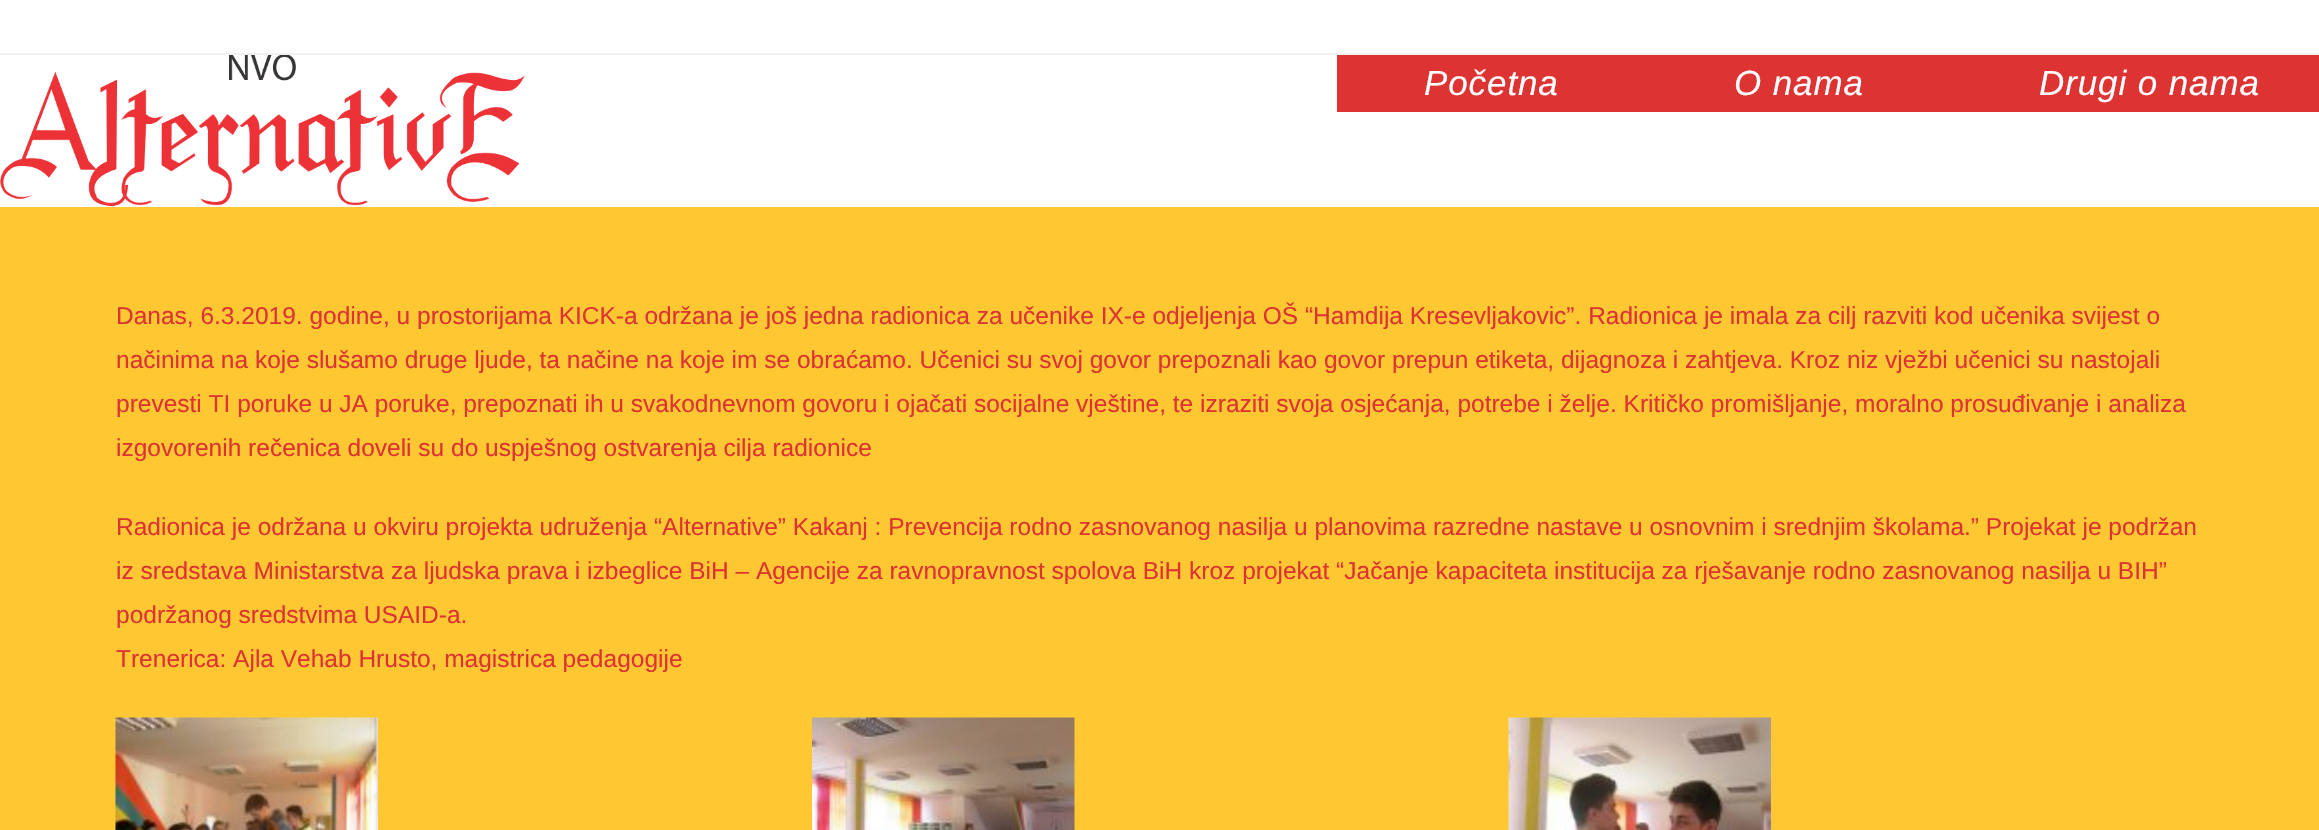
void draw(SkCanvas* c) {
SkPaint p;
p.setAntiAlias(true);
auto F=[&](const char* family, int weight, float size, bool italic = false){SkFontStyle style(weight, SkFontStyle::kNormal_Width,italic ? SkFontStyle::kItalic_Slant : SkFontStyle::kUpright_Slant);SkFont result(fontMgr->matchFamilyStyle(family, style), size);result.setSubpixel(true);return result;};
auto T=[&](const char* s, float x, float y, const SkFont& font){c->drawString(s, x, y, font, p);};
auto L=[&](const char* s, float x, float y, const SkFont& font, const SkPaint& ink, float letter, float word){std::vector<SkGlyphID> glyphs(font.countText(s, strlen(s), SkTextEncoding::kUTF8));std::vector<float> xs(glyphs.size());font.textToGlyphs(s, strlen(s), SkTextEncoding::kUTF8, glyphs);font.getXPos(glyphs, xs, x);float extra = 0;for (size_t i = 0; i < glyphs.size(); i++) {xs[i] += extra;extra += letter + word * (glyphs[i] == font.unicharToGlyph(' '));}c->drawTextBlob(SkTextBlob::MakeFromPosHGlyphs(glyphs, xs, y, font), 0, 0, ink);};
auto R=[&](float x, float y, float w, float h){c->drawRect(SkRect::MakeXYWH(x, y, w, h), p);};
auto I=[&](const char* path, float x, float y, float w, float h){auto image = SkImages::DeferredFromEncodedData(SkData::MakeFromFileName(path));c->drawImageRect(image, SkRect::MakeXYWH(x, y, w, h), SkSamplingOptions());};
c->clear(0xffffc832);
p.setColor(0xffffffff);
R(0,0,2319,53);
p.setColor(0xfff1f1f1);
R(0,53,2319,2);
p.setColor(0xffffffff);
R(0,55,2319,152);
I("1.png",0,55,525,152);
p.setColor(0xffdd3333);
R(1337,55,982,57);
auto f1 = F("Liberation Sans",400,35,true);
p.setColor(0xffffffff);
L("Početna",1424,95,f1,p,.9,0);
L("O nama",1734,95,f1,p,.9,0);
L("Drugi o nama",2039,95,f1,p,.9,0);
auto f2 = F("Liberation Sans",400,24.5);
p.setColor(0xffdd3333);
T("Danas, 6.3.2019. godine, u prostorijama KICK-a održana je još jedna radionica za učenike IX-e odjeljenja OŠ “Hamdija Kresevljakovic”. Radionica je imala za cilj razviti kod učenika svijest o",116,324,f2);
T("načinima na koje slušamo druge ljude, ta načine na koje im se obraćamo. Učenici su svoj govor prepoznali kao govor prepun etiketa, dijagnoza i zahtjeva. Kroz niz vježbi učenici su nastojali",116,368,f2);
T("prevesti TI poruke u JA poruke, prepoznati ih u svakodnevnom govoru i ojačati socijalne vještine, te izraziti svoja osjećanja, potrebe i želje. Kritičko promišljanje, moralno prosuđivanje i analiza",116,412,f2);
T("izgovorenih rečenica doveli su do uspješnog ostvarenja cilja radionice",116,456,f2);
T("Radionica je održana u okviru projekta udruženja “Alternative” Kakanj : Prevencija rodno zasnovanog nasilja u planovima razredne nastave u osnovnim i srednjim školama.” Projekat je podržan",116,535,f2);
T("iz sredstava Ministarstva za ljudska prava i izbeglice BiH – Agencije za ravnopravnost spolova BiH kroz projekat “Jačanje kapaciteta institucija za rješavanje rodno zasnovanog nasilja u BIH”",116,579,f2);
T("podržanog sredstvima USAID-a.",116,623,f2);
T("Trenerica: Ajla Vehab Hrusto, magistrica pedagogije",116,667,f2);
I("2.png",115,717,263,113);
I("3.png",812,717,263,113);
I("4.png",1508,717,263,113);
}
